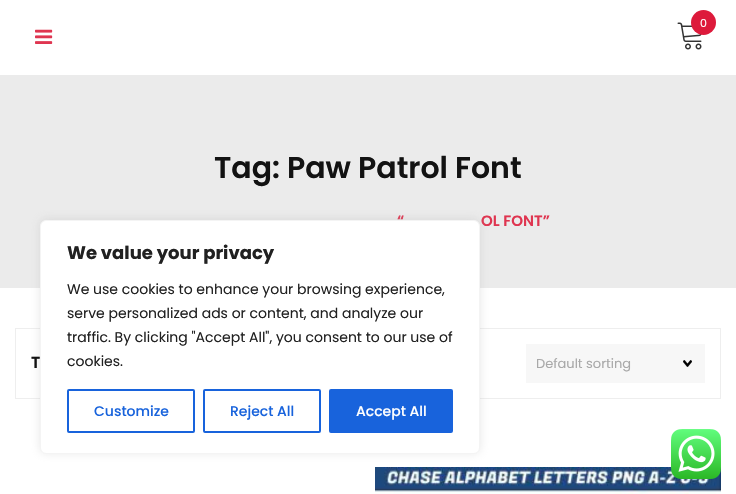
void draw(SkCanvas* c) {
SkPaint p;
p.setAntiAlias(true);
auto F=[&](const char* family, int weight, float size, bool italic = false){SkFontStyle style(weight, SkFontStyle::kNormal_Width,italic ? SkFontStyle::kItalic_Slant : SkFontStyle::kUpright_Slant);SkFont result(fontMgr->matchFamilyStyle(family, style), size);result.setSubpixel(true);return result;};
auto T=[&](const char* s, float x, float y, const SkFont& font){c->drawString(s, x, y, font, p);};
auto R=[&](float x, float y, float w, float h){c->drawRect(SkRect::MakeXYWH(x, y, w, h), p);};
auto I=[&](const char* path, float x, float y, float w, float h){auto image = SkImages::DeferredFromEncodedData(SkData::MakeFromFileName(path));c->drawImageRect(image, SkRect::MakeXYWH(x, y, w, h), SkSamplingOptions());};
c->clear(0xffffffff);
I("1.png",677,22,25,28);
p.setColor(0xffdd1a3b);
c->drawCircle(703.5,22.5,12.5,p);
auto f1 = F("Poppins",400,11);
p.setColor(0xffffffff);
T("0",700,27,f1);
I("2.png",35,29,18,15);
p.setColor(0xffebebeb);
R(0,75,736,213);
auto f2 = F("Poppins",600,30);
p.setColor(0xff121212);
T("Tag: Paw Patrol Font",214,178,f2);
auto f3 = F("Poppins",600,15);
p.setColor(0xffdf3550);
T("“",397,226,f3);
T("OL FONT”",481,226,f3);
p.setStroke(true);
p.setStrokeWidth(1);
p.setColor(0xffeeeeee);
c->drawRect(SkRect::MakeXYWH(15.5,328.5,705,70),p);
I("4.png",375,467,346,27);
p.setStroke(false);
p.setColor(0x4dacabab);
p.setMaskFilter(SkMaskFilter::MakeBlur(kNormal_SkBlurStyle, 5));
c->drawRoundRect(SkRect::MakeXYWH(40,219,440,234),6,6,p);
p.setMaskFilter(nullptr);
p.setColor(0xffffffff);
c->drawRoundRect(SkRect::MakeXYWH(40.5,220.5,439,233),5.5,5.5,p);
p.setStroke(true);
p.setColor(0xfff4f4f4);
c->drawRoundRect(SkRect::MakeXYWH(40.5,220.5,439,233),5.5,5.5,p);
auto f4 = F("Poppins",700,18);
p.setStroke(false);
p.setColor(0xff212121);
T("We value your privacy",67,259,f4);
auto f5 = F("Poppins",400,14);
T("We use cookies to enhance your browsing experience,",67,294,f5);
T("serve personalized ads or content, and analyze our",67,318,f5);
T("traffic. By clicking \"Accept All\", you consent to our use of",67,342,f5);
T("cookies.",67,366,f5);
p.setStroke(true);
p.setStrokeWidth(2);
p.setColor(0xff1863dc);
c->drawRoundRect(SkRect::MakeXYWH(68,390,126,42),1,1,p);
auto f6 = F("Poppins",500,14);
p.setStroke(false);
T("Customize",94,416,f6);
p.setStroke(true);
c->drawRoundRect(SkRect::MakeXYWH(204,390,116,42),1,1,p);
p.setStroke(false);
T("Reject All",230,416,f6);
c->drawRoundRect(SkRect::MakeXYWH(330,390,122,42),1,1,p);
p.setStroke(true);
c->drawRoundRect(SkRect::MakeXYWH(330,390,122,42),1,1,p);
p.setStroke(false);
p.setColor(0xffffffff);
T("Accept All",356,416,f6);
auto f7 = F("Poppins",600,16);
p.setColor(0xff121212);
T("T",31,368,f7);
p.setColor(0xfff7f7f7);
R(526,344,179,39);
I("3.png",683,360,9,7);
auto f8 = F("Poppins",400,13);
p.setColor(0xffa9a9a9);
T("Default sorting",536,368,f8);
I("5.png",671,429,50,50);
}
